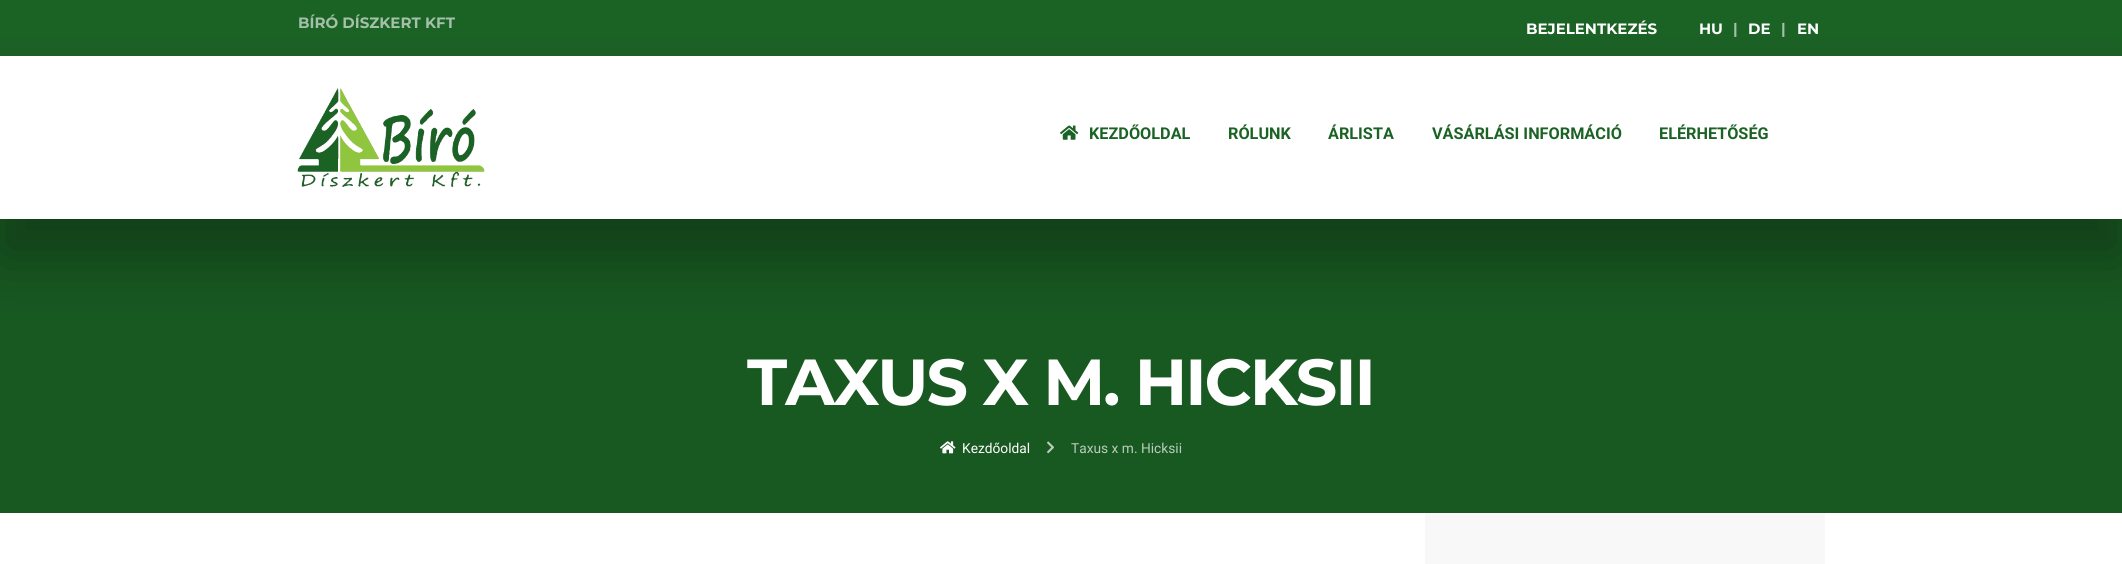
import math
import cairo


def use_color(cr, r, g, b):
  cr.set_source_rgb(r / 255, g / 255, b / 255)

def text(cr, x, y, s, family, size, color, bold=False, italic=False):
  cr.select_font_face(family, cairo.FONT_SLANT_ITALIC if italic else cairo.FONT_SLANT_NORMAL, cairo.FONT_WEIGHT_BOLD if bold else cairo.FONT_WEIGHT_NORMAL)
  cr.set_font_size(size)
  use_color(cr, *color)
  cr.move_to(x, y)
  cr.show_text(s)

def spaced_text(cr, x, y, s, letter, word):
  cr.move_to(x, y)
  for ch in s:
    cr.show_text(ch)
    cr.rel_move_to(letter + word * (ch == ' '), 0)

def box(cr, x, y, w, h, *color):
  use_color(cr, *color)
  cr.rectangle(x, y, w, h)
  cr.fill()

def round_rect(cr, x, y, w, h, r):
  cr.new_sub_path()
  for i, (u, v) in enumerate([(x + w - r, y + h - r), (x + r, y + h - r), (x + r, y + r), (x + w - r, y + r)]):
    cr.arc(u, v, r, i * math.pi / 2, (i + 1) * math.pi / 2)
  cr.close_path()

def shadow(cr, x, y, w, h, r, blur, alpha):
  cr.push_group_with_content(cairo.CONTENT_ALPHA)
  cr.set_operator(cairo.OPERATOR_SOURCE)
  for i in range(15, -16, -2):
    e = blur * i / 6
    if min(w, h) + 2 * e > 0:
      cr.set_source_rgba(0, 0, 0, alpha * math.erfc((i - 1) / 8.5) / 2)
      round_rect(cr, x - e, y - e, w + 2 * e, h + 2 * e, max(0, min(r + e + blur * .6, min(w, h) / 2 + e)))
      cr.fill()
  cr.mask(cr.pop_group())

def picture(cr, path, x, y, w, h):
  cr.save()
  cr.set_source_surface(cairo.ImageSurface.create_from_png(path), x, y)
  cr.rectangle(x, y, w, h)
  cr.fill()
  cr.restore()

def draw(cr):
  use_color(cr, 255, 255, 255)
  cr.paint()
  box(cr, 0, 0, 2122, 56, 27, 98, 37)
  box(cr, 0, 219, 2122, 294, 24, 88, 33)
  use_color(cr, 0, 0, 0)
  shadow(cr, 0, 94, 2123, 162, 0, 31, 0.3)
  box(cr, 0, 56, 2122, 163, 255, 255, 255)
  picture(cr, "img_01.png", 297, 87, 188, 100)
  picture(cr, "img_02.png", 1060, 125, 19, 15)
  picture(cr, "img_03.png", 940, 441, 16, 13)
  picture(cr, "img_04.png", 1047, 441, 7, 13)
  box(cr, 1425, 513, 400, 51, 248, 248, 248)
  text(cr, 298, 28, "BÍRÓ DÍSZKERT KFT", "Montserrat Thin", 15, (164, 192, 168))
  text(cr, 1526, 34, "BEJELENTKEZÉS", "Montserrat Thin", 15, (255, 255, 255))
  text(cr, 1699, 34, "HU", "Montserrat Thin", 15, (255, 255, 255))
  text(cr, 1733, 34, "|", "Montserrat Thin", 15, (164, 192, 168))
  text(cr, 1748, 34, "DE", "Montserrat Thin", 15, (255, 255, 255))
  text(cr, 1781, 34, "|", "Montserrat Thin", 15, (164, 192, 168))
  text(cr, 1797, 34, "EN", "Montserrat Thin", 15, (255, 255, 255))
  text(cr, 1089, 139, "KEZDŐOLDAL", "Roboto", 16.25, (27, 98, 37), bold=True)
  text(cr, 1228, 139, "RÓLUNK", "Roboto", 16.25, (27, 98, 37), bold=True)
  text(cr, 1328, 139, "ÁRLISTA", "Roboto", 16.25, (27, 98, 37), bold=True)
  text(cr, 1432, 139, "VÁSÁRLÁSI INFORMÁCIÓ", "Roboto", 16.25, (27, 98, 37), bold=True)
  text(cr, 1659, 139, "ELÉRHETŐSÉG", "Roboto", 16.25, (27, 98, 37), bold=True)
  cr.select_font_face("Montserrat Thin")
  cr.set_font_size(65)
  use_color(cr, 255, 255, 255)
  spaced_text(cr, 747, 405, "TAXUS X M. HICKSII", -2, 0)
  text(cr, 962, 453, "Kezdőoldal", "Roboto", 13.75, (255, 255, 255))
  text(cr, 1071, 453, "Taxus x m. Hicksii", "Roboto", 13.75, (186, 205, 188))


surface = cairo.ImageSurface(cairo.FORMAT_RGB24, 2122, 564)
cr = cairo.Context(surface)
options = cairo.FontOptions()
options.set_hint_metrics(cairo.HINT_METRICS_OFF)
options.set_hint_style(cairo.HINT_STYLE_NONE)
cr.set_font_options(options)
cr.set_miter_limit(4)
draw(cr)
surface.write_to_png("out.png")
